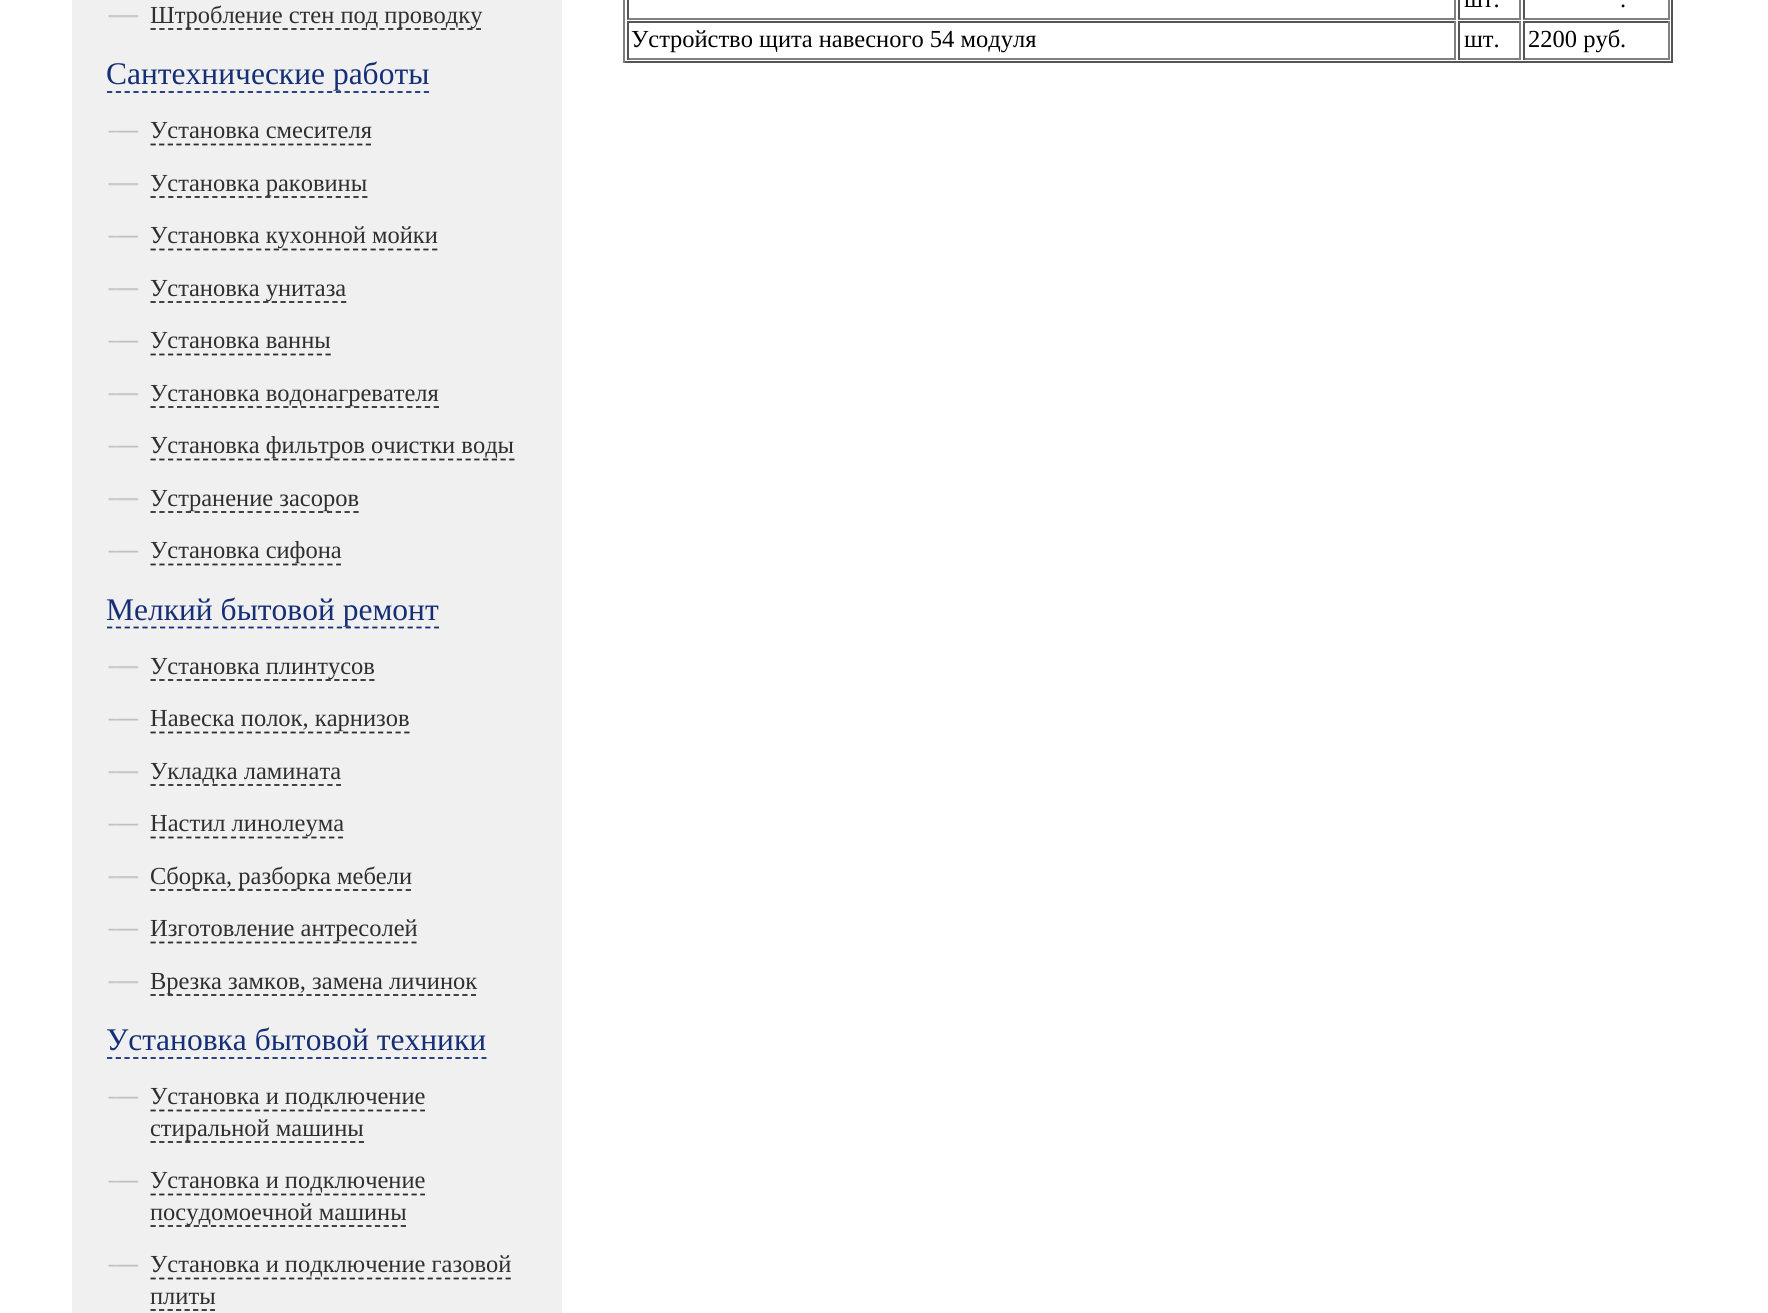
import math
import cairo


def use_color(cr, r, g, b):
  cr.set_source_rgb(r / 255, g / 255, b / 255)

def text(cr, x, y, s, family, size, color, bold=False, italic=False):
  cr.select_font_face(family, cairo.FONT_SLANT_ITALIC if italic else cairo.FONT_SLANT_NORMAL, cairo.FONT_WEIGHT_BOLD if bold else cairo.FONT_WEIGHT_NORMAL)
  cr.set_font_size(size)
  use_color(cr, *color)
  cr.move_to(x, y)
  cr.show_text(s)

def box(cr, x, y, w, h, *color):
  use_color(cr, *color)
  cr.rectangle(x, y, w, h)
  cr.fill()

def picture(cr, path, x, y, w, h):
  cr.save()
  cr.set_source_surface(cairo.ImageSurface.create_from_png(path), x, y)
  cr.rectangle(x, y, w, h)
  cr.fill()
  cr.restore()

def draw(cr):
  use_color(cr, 255, 255, 255)
  cr.paint()
  box(cr, 72, 0, 490, 1313, 240, 240, 240)
  picture(cr, "img_01.png", 108, 15, 31, 3)
  cr.new_path()
  cr.move_to(150.5, 29)
  cr.line_to(481, 29)
  use_color(cr, 47, 47, 47)
  cr.set_line_width(1.8)
  cr.set_dash([5.25, 3.55])
  cr.stroke()
  cr.new_path()
  cr.move_to(107, 92)
  cr.line_to(429, 92)
  use_color(cr, 21, 47, 118)
  cr.stroke()
  picture(cr, "img_02.png", 108, 130, 31, 3)
  cr.new_path()
  cr.move_to(150.5, 144.5)
  cr.line_to(371, 144.5)
  use_color(cr, 47, 47, 47)
  cr.set_dash([5.25, 3.36])
  cr.stroke()
  picture(cr, "img_01.png", 108, 183, 31, 3)
  cr.new_path()
  cr.move_to(150.5, 197)
  cr.line_to(367.5, 197)
  cr.set_dash([5.25, 3.57])
  cr.stroke()
  picture(cr, "img_02.png", 108, 235, 31, 3)
  cr.new_path()
  cr.move_to(150.5, 249.5)
  cr.line_to(437.5, 249.5)
  cr.set_dash([5.25, 3.55])
  cr.stroke()
  picture(cr, "img_01.png", 108, 288, 31, 3)
  cr.new_path()
  cr.move_to(150.5, 302)
  cr.line_to(346.5, 302)
  cr.set_dash([5.25, 3.41])
  cr.stroke()
  picture(cr, "img_02.png", 108, 340, 31, 3)
  cr.new_path()
  cr.move_to(150.5, 354.5)
  cr.line_to(331, 354.5)
  cr.set_dash([5.25, 3.5])
  cr.stroke()
  picture(cr, "img_01.png", 108, 393, 31, 3)
  cr.new_path()
  cr.move_to(150.5, 407)
  cr.line_to(439, 407)
  cr.set_dash([5.25, 3.6])
  cr.stroke()
  picture(cr, "img_02.png", 108, 445, 31, 3)
  cr.new_path()
  cr.move_to(150.5, 459.5)
  cr.line_to(514.5, 459.5)
  cr.set_dash([5.25, 3.5])
  cr.stroke()
  picture(cr, "img_01.png", 108, 498, 31, 3)
  cr.new_path()
  cr.move_to(150.5, 512)
  cr.line_to(359, 512)
  cr.set_dash([5.25, 3.57])
  cr.stroke()
  picture(cr, "img_02.png", 108, 550, 31, 3)
  cr.new_path()
  cr.move_to(150.5, 564.5)
  cr.line_to(341, 564.5)
  cr.set_dash([5.25, 3.59])
  cr.stroke()
  cr.new_path()
  cr.move_to(107, 627.5)
  cr.line_to(439, 627.5)
  use_color(cr, 21, 47, 118)
  cr.stroke()
  picture(cr, "img_01.png", 108, 666, 31, 3)
  cr.new_path()
  cr.move_to(150.5, 680)
  cr.line_to(374.5, 680)
  use_color(cr, 47, 47, 47)
  cr.set_dash([5.25, 3.5])
  cr.stroke()
  picture(cr, "img_02.png", 108, 718, 31, 3)
  cr.new_path()
  cr.move_to(150.5, 732.5)
  cr.line_to(409.5, 732.5)
  cr.stroke()
  picture(cr, "img_01.png", 108, 771, 31, 3)
  cr.new_path()
  cr.move_to(150.5, 785)
  cr.line_to(341, 785)
  cr.set_dash([5.25, 3.59])
  cr.stroke()
  picture(cr, "img_02.png", 108, 823, 31, 3)
  cr.new_path()
  cr.move_to(150.5, 837.5)
  cr.line_to(343, 837.5)
  cr.set_dash([5.25, 3.68])
  cr.stroke()
  picture(cr, "img_01.png", 108, 876, 31, 3)
  cr.new_path()
  cr.move_to(150.5, 890)
  cr.line_to(411, 890)
  cr.set_dash([5.25, 3.55])
  cr.stroke()
  picture(cr, "img_02.png", 108, 928, 31, 3)
  cr.new_path()
  cr.move_to(150.5, 942.5)
  cr.line_to(416.5, 942.5)
  cr.set_dash([5.25, 3.45])
  cr.stroke()
  picture(cr, "img_01.png", 108, 981, 31, 3)
  cr.new_path()
  cr.move_to(150.5, 995)
  cr.line_to(476, 995)
  cr.set_dash([5.25, 3.41])
  cr.stroke()
  cr.new_path()
  cr.move_to(107, 1058)
  cr.line_to(486.5, 1058)
  use_color(cr, 21, 47, 118)
  cr.set_dash([5.25, 3.46])
  cr.stroke()
  picture(cr, "img_02.png", 108, 1096, 31, 3)
  cr.new_path()
  cr.move_to(150.5, 1110.5)
  cr.line_to(425, 1110.5)
  use_color(cr, 47, 47, 47)
  cr.set_dash([5.25, 3.45])
  cr.stroke()
  cr.new_path()
  cr.move_to(150.5, 1142)
  cr.line_to(364, 1142)
  cr.set_dash([5.25, 3.43])
  cr.stroke()
  picture(cr, "img_02.png", 108, 1180, 31, 3)
  cr.new_path()
  cr.move_to(150.5, 1194.5)
  cr.line_to(425, 1194.5)
  cr.set_dash([5.25, 3.45])
  cr.stroke()
  cr.new_path()
  cr.move_to(150.5, 1226)
  cr.line_to(406, 1226)
  cr.set_dash([5.25, 3.38])
  cr.stroke()
  picture(cr, "img_02.png", 108, 1264, 31, 3)
  cr.new_path()
  cr.move_to(150.5, 1278.5)
  cr.line_to(511, 1278.5)
  cr.set_dash([5.25, 3.41])
  cr.stroke()
  cr.new_path()
  cr.move_to(150.5, 1310)
  cr.line_to(215, 1310)
  cr.set_dash([5.25, 3.26])
  cr.stroke()
  box(cr, 1671, 0, 2, 63, 85, 85, 85)
  box(cr, 623, 61, 1050, 2, 85, 85, 85)
  box(cr, 623, 0, 2, 63, 128, 128, 128)
  box(cr, 1454, 0, 2, 19, 128, 128, 128)
  box(cr, 627, 18, 829, 2, 128, 128, 128)
  box(cr, 627, 0, 2, 19, 85, 85, 85)
  box(cr, 1519, 0, 2, 19, 128, 128, 128)
  box(cr, 1458, 18, 63, 2, 128, 128, 128)
  box(cr, 1458, 0, 2, 19, 85, 85, 85)
  box(cr, 1668, 0, 2, 19, 128, 128, 128)
  box(cr, 1523, 18, 147, 2, 128, 128, 128)
  box(cr, 1523, 0, 2, 19, 85, 85, 85)
  box(cr, 627, 21, 829, 2, 85, 85, 85)
  box(cr, 1454, 21, 2, 39, 128, 128, 128)
  box(cr, 627, 58, 829, 2, 128, 128, 128)
  box(cr, 627, 21, 2, 39, 85, 85, 85)
  box(cr, 1458, 21, 63, 2, 85, 85, 85)
  box(cr, 1519, 21, 2, 39, 128, 128, 128)
  box(cr, 1458, 58, 63, 2, 128, 128, 128)
  box(cr, 1458, 21, 2, 39, 85, 85, 85)
  box(cr, 1523, 21, 147, 2, 85, 85, 85)
  box(cr, 1668, 21, 2, 39, 128, 128, 128)
  box(cr, 1523, 58, 147, 2, 128, 128, 128)
  box(cr, 1523, 21, 2, 39, 85, 85, 85)
  text(cr, 150, 23, "Штробление стен под проводку", "Liberation Serif", 24.5, (47, 47, 47))
  text(cr, 106, 84, "Сантехнические работы", "Liberation Serif", 31.5, (21, 47, 118))
  text(cr, 150, 138, "Установка смесителя", "Liberation Serif", 24.5, (47, 47, 47))
  text(cr, 150, 191, "Установка раковины", "Liberation Serif", 24.5, (47, 47, 47))
  text(cr, 150, 243, "Установка кухонной мойки", "Liberation Serif", 24.5, (47, 47, 47))
  text(cr, 150, 296, "Установка унитаза", "Liberation Serif", 24.5, (47, 47, 47))
  text(cr, 150, 348, "Установка ванны", "Liberation Serif", 24.5, (47, 47, 47))
  text(cr, 150, 401, "Установка водонагревателя", "Liberation Serif", 24.5, (47, 47, 47))
  text(cr, 150, 453, "Установка фильтров очистки воды", "Liberation Serif", 24.5, (47, 47, 47))
  text(cr, 150, 506, "Устранение засоров", "Liberation Serif", 24.5, (47, 47, 47))
  text(cr, 150, 558, "Установка сифона", "Liberation Serif", 24.5, (47, 47, 47))
  text(cr, 106, 620, "Мелкий бытовой ремонт", "Liberation Serif", 31.5, (21, 47, 118))
  text(cr, 150, 674, "Установка плинтусов", "Liberation Serif", 24.5, (47, 47, 47))
  text(cr, 150, 726, "Навеска полок, карнизов", "Liberation Serif", 24.5, (47, 47, 47))
  text(cr, 150, 779, "Укладка ламината", "Liberation Serif", 24.5, (47, 47, 47))
  text(cr, 150, 831, "Настил линолеума", "Liberation Serif", 24.5, (47, 47, 47))
  text(cr, 150, 884, "Сборка, разборка мебели", "Liberation Serif", 24.5, (47, 47, 47))
  text(cr, 150, 936, "Изготовление антресолей", "Liberation Serif", 24.5, (47, 47, 47))
  text(cr, 150, 989, "Врезка замков, замена личинок", "Liberation Serif", 24.5, (47, 47, 47))
  text(cr, 106, 1050, "Установка бытовой техники", "Liberation Serif", 31.5, (21, 47, 118))
  text(cr, 150, 1104, "Установка и подключение", "Liberation Serif", 24.5, (47, 47, 47))
  text(cr, 150, 1136, "стиральной машины", "Liberation Serif", 24.5, (47, 47, 47))
  text(cr, 150, 1188, "Установка и подключение", "Liberation Serif", 24.5, (47, 47, 47))
  text(cr, 150, 1220, "посудомоечной машины", "Liberation Serif", 24.5, (47, 47, 47))
  text(cr, 150, 1272, "Установка и подключение газовой", "Liberation Serif", 24.5, (47, 47, 47))
  text(cr, 150, 1304, "плиты", "Liberation Serif", 24.5, (47, 47, 47))
  text(cr, 1464, 7, "шт.", "Liberation Serif", 24.5, (0, 0, 0))
  text(cr, 1620, 7, ".", "Liberation Serif", 24.5, (0, 0, 0))
  text(cr, 631, 47, "Устройство щита навесного 54 модуля", "Liberation Serif", 24.5, (0, 0, 0))
  text(cr, 1464, 47, "шт.", "Liberation Serif", 24.5, (0, 0, 0))
  text(cr, 1528, 47, "2200 руб.", "Liberation Serif", 24.5, (0, 0, 0))


surface = cairo.ImageSurface(cairo.FORMAT_RGB24, 1768, 1313)
cr = cairo.Context(surface)
options = cairo.FontOptions()
options.set_hint_metrics(cairo.HINT_METRICS_OFF)
options.set_hint_style(cairo.HINT_STYLE_NONE)
cr.set_font_options(options)
cr.set_miter_limit(4)
draw(cr)
surface.write_to_png("out.png")
